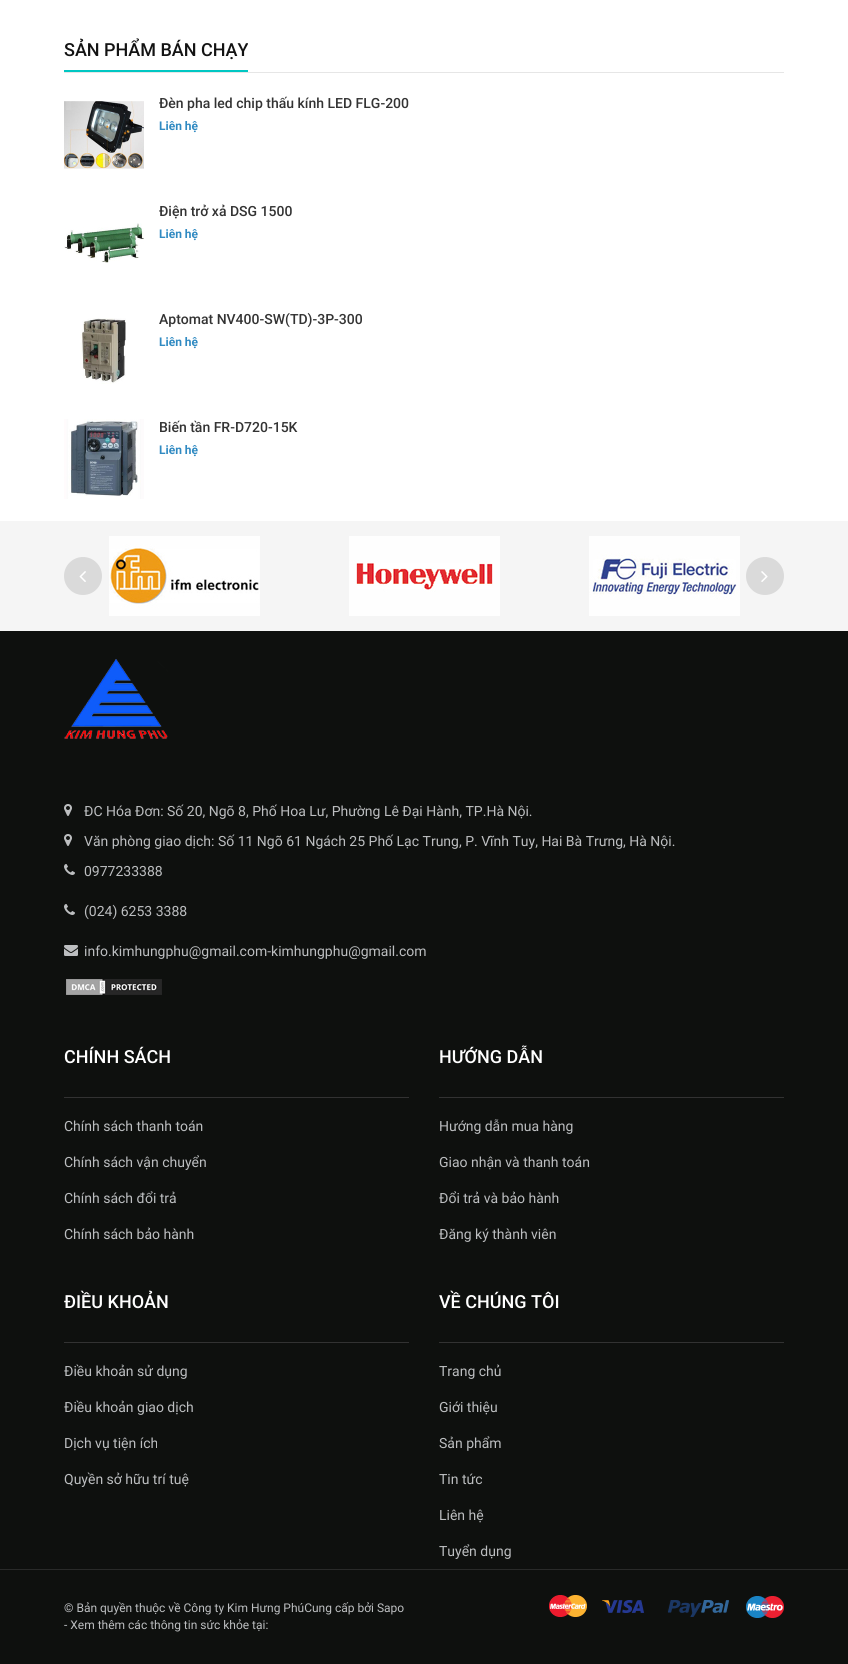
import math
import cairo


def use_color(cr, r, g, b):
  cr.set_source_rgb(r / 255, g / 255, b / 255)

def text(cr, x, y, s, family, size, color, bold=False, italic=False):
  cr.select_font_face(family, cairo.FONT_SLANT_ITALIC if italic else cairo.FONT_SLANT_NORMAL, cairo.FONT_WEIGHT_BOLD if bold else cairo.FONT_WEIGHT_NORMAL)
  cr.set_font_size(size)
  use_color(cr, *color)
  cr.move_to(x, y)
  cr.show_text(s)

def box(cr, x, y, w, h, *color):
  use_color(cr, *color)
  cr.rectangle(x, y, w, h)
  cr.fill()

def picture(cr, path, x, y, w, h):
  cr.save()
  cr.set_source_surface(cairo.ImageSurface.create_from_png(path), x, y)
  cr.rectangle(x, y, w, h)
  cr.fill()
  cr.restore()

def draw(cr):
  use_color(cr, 255, 255, 255)
  cr.paint()
  box(cr, 64, 72, 720, 1, 230, 230, 230)
  box(cr, 64, 70, 184, 2, 0, 199, 195)
  picture(cr, "img_01.png", 64, 101, 80, 69)
  picture(cr, "img_02.png", 64, 223, 80, 40)
  picture(cr, "img_03.png", 80, 318, 46, 66)
  picture(cr, "img_04.png", 64, 419, 80, 80)
  box(cr, 0, 521, 848, 110, 245, 245, 245)
  picture(cr, "img_05.png", 109, 536, 151, 80)
  picture(cr, "img_06.png", 349, 536, 151, 80)
  picture(cr, "img_07.png", 589, 536, 151, 80)
  use_color(cr, 218, 218, 218)
  cr.arc(83, 576, 19, 0, 2 * math.pi)
  cr.fill()
  picture(cr, "img_08.png", 79, 571, 7, 11)
  cr.arc(765, 576, 19, 0, 2 * math.pi)
  cr.fill()
  picture(cr, "img_09.png", 761, 571, 7, 11)
  box(cr, 0, 631, 848, 1033, 14, 16, 14)
  picture(cr, "img_10.png", 64, 659, 104, 80)
  picture(cr, "img_11.png", 64, 804, 8, 12)
  picture(cr, "img_11.png", 64, 834, 8, 12)
  picture(cr, "img_12.png", 64, 864, 11, 11)
  picture(cr, "img_12.png", 64, 904, 11, 11)
  picture(cr, "img_13.png", 64, 945, 14, 11)
  picture(cr, "img_14.png", 66, 979, 96, 16)
  box(cr, 64, 1097, 345, 1, 50, 50, 50)
  box(cr, 439, 1097, 345, 1, 50, 50, 50)
  box(cr, 64, 1342, 345, 1, 50, 50, 50)
  box(cr, 439, 1342, 345, 1, 50, 50, 50)
  box(cr, 0, 1569, 848, 1, 41, 42, 41)
  picture(cr, "img_15.png", 549, 1595, 235, 23)
  text(cr, 64, 56, "SẢN PHẨM BÁN CHẠY", "Roboto Medium", 18, (19, 19, 19))
  text(cr, 159, 108, "Đèn pha led chip thấu kính LED FLG-200", "Roboto Medium", 14, (51, 51, 51))
  text(cr, 159, 130, "Liên hệ", "Roboto", 12, (48, 138, 194), bold=True)
  text(cr, 159, 216, "Điện trở xả DSG 1500", "Roboto Medium", 14, (51, 51, 51))
  text(cr, 159, 238, "Liên hệ", "Roboto", 12, (48, 138, 194), bold=True)
  text(cr, 159, 324, "Aptomat NV400-SW(TD)-3P-300", "Roboto Medium", 14, (51, 51, 51))
  text(cr, 159, 346, "Liên hệ", "Roboto", 12, (48, 138, 194), bold=True)
  text(cr, 159, 432, "Biến tần FR-D720-15K", "Roboto Medium", 14, (51, 51, 51))
  text(cr, 159, 454, "Liên hệ", "Roboto", 12, (48, 138, 194), bold=True)
  text(cr, 84, 816, "ĐC Hóa Đơn: Số 20, Ngõ 8, Phố Hoa Lư, Phường Lê Đại Hành, TP.Hà Nội.", "Roboto", 14, (188, 190, 192))
  text(cr, 84, 846, "Văn phòng giao dịch: Số 11 Ngõ 61 Ngách 25 Phố Lạc Trung, P. Vĩnh Tuy, Hai Bà Trưng, Hà Nội.", "Roboto", 14, (188, 190, 192))
  text(cr, 84, 876, "0977233388", "Roboto", 14, (188, 190, 192))
  text(cr, 84, 916, "(024) 6253 3388", "Roboto", 14, (188, 190, 192))
  text(cr, 84, 956, "info.kimhungphu@gmail.com-kimhungphu@gmail.com", "Roboto", 14, (188, 190, 192))
  text(cr, 64, 1063, "CHÍNH SÁCH", "Roboto Medium", 18, (255, 255, 255))
  text(cr, 64, 1131, "Chính sách thanh toán", "Roboto", 14, (188, 190, 192))
  text(cr, 64, 1167, "Chính sách vận chuyển", "Roboto", 14, (188, 190, 192))
  text(cr, 64, 1203, "Chính sách đổi trả", "Roboto", 14, (188, 190, 192))
  text(cr, 64, 1239, "Chính sách bảo hành", "Roboto", 14, (188, 190, 192))
  text(cr, 439, 1063, "HƯỚNG DẪN", "Roboto Medium", 18, (255, 255, 255))
  text(cr, 439, 1131, "Hướng dẫn mua hàng", "Roboto", 14, (188, 190, 192))
  text(cr, 439, 1167, "Giao nhận và thanh toán", "Roboto", 14, (188, 190, 192))
  text(cr, 439, 1203, "Đổi trả và bảo hành", "Roboto", 14, (188, 190, 192))
  text(cr, 439, 1239, "Đăng ký thành viên", "Roboto", 14, (188, 190, 192))
  text(cr, 64, 1308, "ĐIỀU KHOẢN", "Roboto Medium", 18, (255, 255, 255))
  text(cr, 64, 1376, "Điều khoản sử dụng", "Roboto", 14, (188, 190, 192))
  text(cr, 64, 1412, "Điều khoản giao dịch", "Roboto", 14, (188, 190, 192))
  text(cr, 64, 1448, "Dịch vụ tiện ích", "Roboto", 14, (188, 190, 192))
  text(cr, 64, 1484, "Quyền sở hữu trí tuệ", "Roboto", 14, (188, 190, 192))
  text(cr, 439, 1308, "VỀ CHÚNG TÔI", "Roboto Medium", 18, (255, 255, 255))
  text(cr, 439, 1376, "Trang chủ", "Roboto", 14, (188, 190, 192))
  text(cr, 439, 1412, "Giới thiệu", "Roboto", 14, (188, 190, 192))
  text(cr, 439, 1448, "Sản phẩm", "Roboto", 14, (188, 190, 192))
  text(cr, 439, 1484, "Tin tức", "Roboto", 14, (188, 190, 192))
  text(cr, 439, 1520, "Liên hệ", "Roboto", 14, (188, 190, 192))
  text(cr, 439, 1556, "Tuyển dụng", "Roboto", 14, (188, 190, 192))
  text(cr, 64, 1612, "© Bản quyền thuộc về Công ty Kim Hưng PhúCung cấp bởi Sapo", "Roboto", 12, (188, 190, 192))
  text(cr, 64, 1629, "- Xem thêm các thông tin sức khỏe tại:", "Roboto", 12, (188, 190, 192))


surface = cairo.ImageSurface(cairo.FORMAT_RGB24, 848, 1664)
cr = cairo.Context(surface)
options = cairo.FontOptions()
options.set_hint_metrics(cairo.HINT_METRICS_OFF)
options.set_hint_style(cairo.HINT_STYLE_NONE)
cr.set_font_options(options)
cr.set_miter_limit(4)
draw(cr)
surface.write_to_png("out.png")
